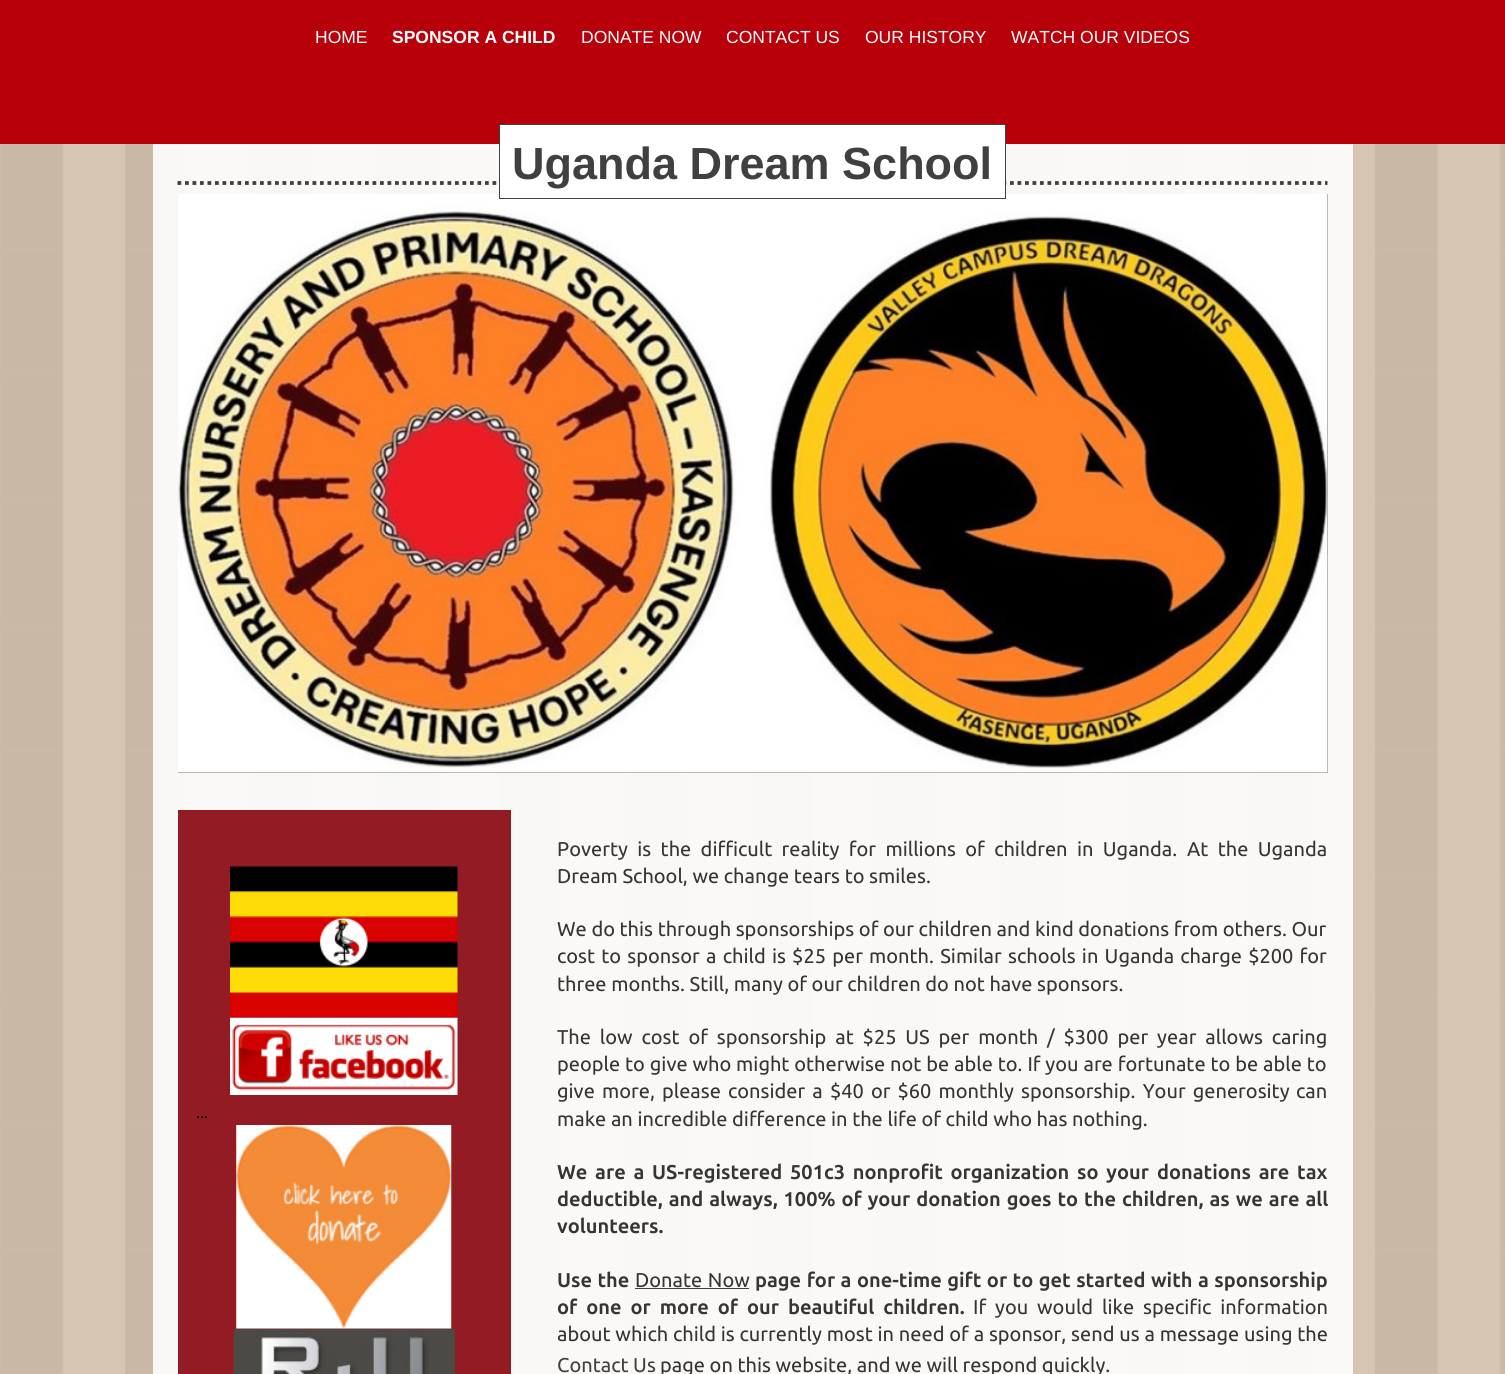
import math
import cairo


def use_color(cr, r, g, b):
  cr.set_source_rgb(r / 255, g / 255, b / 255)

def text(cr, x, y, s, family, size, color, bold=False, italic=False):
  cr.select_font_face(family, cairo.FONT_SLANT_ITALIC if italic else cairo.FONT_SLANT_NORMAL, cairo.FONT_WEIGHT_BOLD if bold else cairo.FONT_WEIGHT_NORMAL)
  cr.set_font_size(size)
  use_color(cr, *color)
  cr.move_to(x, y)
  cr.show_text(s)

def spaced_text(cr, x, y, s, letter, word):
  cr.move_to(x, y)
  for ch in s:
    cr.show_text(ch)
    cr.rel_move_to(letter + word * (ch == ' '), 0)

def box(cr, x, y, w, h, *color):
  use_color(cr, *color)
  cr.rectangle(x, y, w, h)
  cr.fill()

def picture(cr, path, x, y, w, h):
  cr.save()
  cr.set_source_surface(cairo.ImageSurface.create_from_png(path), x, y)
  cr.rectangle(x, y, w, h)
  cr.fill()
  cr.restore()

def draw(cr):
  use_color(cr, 212, 194, 172)
  cr.paint()
  picture(cr, "img_01.png", 0, 144, 1505, 1230)
  box(cr, 0, 0, 1505, 144, 184, 0, 11)
  cr.set_source_rgba(1, 1, 1, 0.9)
  cr.rectangle(153, 144, 1200, 1230)
  cr.fill()
  cr.new_path()
  cr.move_to(177.5, 183)
  cr.line_to(1327.5, 183)
  use_color(cr, 64, 64, 64)
  cr.set_line_width(3.8)
  cr.set_dash([3.75, 3.75])
  cr.stroke()
  box(cr, 500, 125, 505, 69, 255, 255, 255)
  box(cr, 178, 194, 1150, 579, 160, 160, 160)
  picture(cr, "img_02.png", 178, 194, 1150, 579)
  cr.rectangle(499.5, 124.5, 506, 74)
  use_color(cr, 64, 64, 64)
  cr.set_line_width(1)
  cr.set_dash([])
  cr.stroke()
  box(cr, 178, 810, 333, 564, 147, 28, 36)
  picture(cr, "img_03.png", 230, 866, 228, 152)
  picture(cr, "img_04.png", 230, 1017, 228, 78)
  picture(cr, "img_05.png", 236, 1125, 216, 204)
  picture(cr, "img_06.png", 233, 1328, 222, 46)
  box(cr, 635, 1288, 114, 1, 64, 64, 64)
  text(cr, 315, 43, "HOME", "Liberation Sans", 17.5, (255, 255, 255))
  text(cr, 392, 43, "SPONSOR A CHILD", "Liberation Sans", 17.5, (255, 255, 255), bold=True)
  text(cr, 581, 43, "DONATE NOW", "Liberation Sans", 17.5, (255, 255, 255))
  text(cr, 726, 43, "CONTACT US", "Liberation Sans", 17.5, (255, 255, 255))
  text(cr, 865, 43, "OUR HISTORY", "Liberation Sans", 17.5, (255, 255, 255))
  text(cr, 1011, 43, "WATCH OUR VIDEOS", "Liberation Sans", 17.5, (255, 255, 255))
  text(cr, 512, 179, "Uganda Dream School", "Liberation Sans", 45, (64, 64, 64), bold=True)
  text(cr, 196, 1118, "...", "Ubuntu", 16, (0, 0, 0))
  cr.set_font_size(20)
  use_color(cr, 53, 53, 53)
  spaced_text(cr, 557, 856, "Poverty is the difficult reality for millions of children in Uganda.", 0, 4.75)
  spaced_text(cr, 1187, 856, "At the Uganda", 0, 4.75)
  text(cr, 557, 883, "Dream School, we change tears to smiles.", "Ubuntu", 20, (53, 53, 53))
  text(cr, 557, 936, "We do this through sponsorships of our children and kind donations from others. Our", "Ubuntu", 20, (53, 53, 53))
  spaced_text(cr, 557, 963, "cost to sponsor a child is $25 per month. Similar schools in Uganda charge $200 for", 0, 1.6)
  text(cr, 557, 991, "three months. Still, many of our children do not have sponsors.", "Ubuntu", 20, (53, 53, 53))
  spaced_text(cr, 557, 1044, "The low cost of sponsorship at $25 US per month / $300 per year allows caring", 0, 4.25)
  spaced_text(cr, 557, 1071, "people to give who might otherwise not be able to. If you are fortunate to be able to", 0, 0.25)
  spaced_text(cr, 557, 1098, "give more, please consider a $40 or $60 monthly sponsorship. Your generosity", 0, 2.5)
  text(cr, 1296, 1098, "can", "Ubuntu", 20, (53, 53, 53))
  text(cr, 557, 1126, "make an incredible difference in the life of child who has nothing.", "Ubuntu", 20, (53, 53, 53))
  cr.select_font_face("Ubuntu", cairo.FONT_SLANT_NORMAL, cairo.FONT_WEIGHT_BOLD)
  spaced_text(cr, 557, 1179, "We are a US-registered 501c3 nonprofit organization so your", 0, 3)
  spaced_text(cr, 1157, 1179, "donations are tax", 0, 3)
  spaced_text(cr, 557, 1206, "deductible, and always, 100% of your donation goes to the children, as we are all", 0, 1.25)
  text(cr, 557, 1233, "volunteers.", "Ubuntu", 20, (53, 53, 53), bold=True)
  spaced_text(cr, 557, 1287, "Use the", 0, 0.75)
  cr.select_font_face("Ubuntu")
  spaced_text(cr, 635, 1287, "Donate Now", 0, 1)
  cr.select_font_face("Ubuntu", cairo.FONT_SLANT_NORMAL, cairo.FONT_WEIGHT_BOLD)
  spaced_text(cr, 755, 1287, "page for a one-time gift or to get started with a sponsorship", 0, 0.75)
  spaced_text(cr, 557, 1314, "of one or more of our beautiful children.", 0, 4.25)
  cr.select_font_face("Ubuntu")
  spaced_text(cr, 973, 1314, "If you would like specific information", 0, 4.25)
  spaced_text(cr, 557, 1341, "about which child is currently most in need of a sponsor, send us a message using the", 0, 0.2)
  text(cr, 557, 1372, "Contact Us", "Ubuntu", 20, (64, 64, 64))
  text(cr, 660, 1372, "page on this website, and we will respond quickly.", "Ubuntu", 20, (53, 53, 53))


surface = cairo.ImageSurface(cairo.FORMAT_RGB24, 1505, 1374)
cr = cairo.Context(surface)
options = cairo.FontOptions()
options.set_hint_metrics(cairo.HINT_METRICS_OFF)
options.set_hint_style(cairo.HINT_STYLE_NONE)
cr.set_font_options(options)
cr.set_miter_limit(4)
draw(cr)
surface.write_to_png("out.png")
